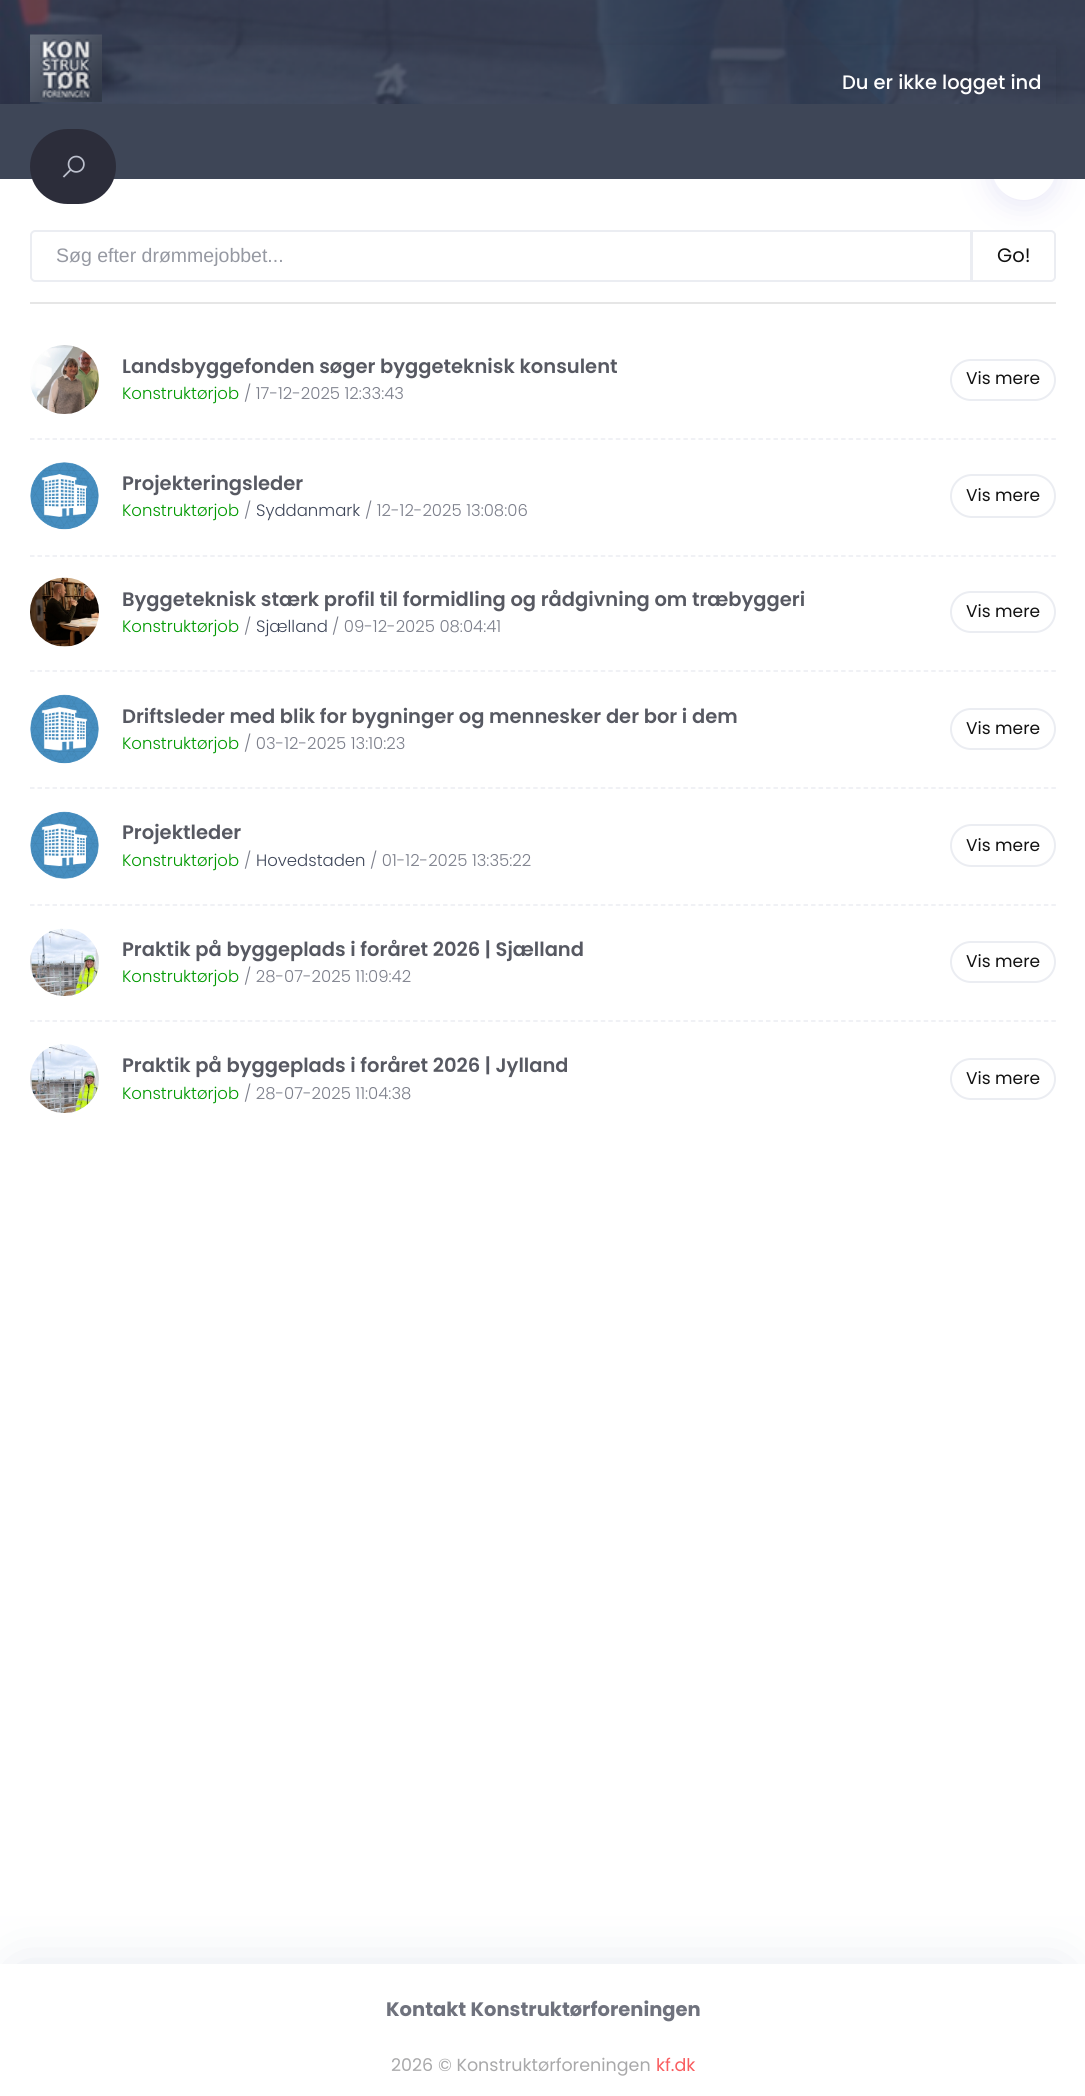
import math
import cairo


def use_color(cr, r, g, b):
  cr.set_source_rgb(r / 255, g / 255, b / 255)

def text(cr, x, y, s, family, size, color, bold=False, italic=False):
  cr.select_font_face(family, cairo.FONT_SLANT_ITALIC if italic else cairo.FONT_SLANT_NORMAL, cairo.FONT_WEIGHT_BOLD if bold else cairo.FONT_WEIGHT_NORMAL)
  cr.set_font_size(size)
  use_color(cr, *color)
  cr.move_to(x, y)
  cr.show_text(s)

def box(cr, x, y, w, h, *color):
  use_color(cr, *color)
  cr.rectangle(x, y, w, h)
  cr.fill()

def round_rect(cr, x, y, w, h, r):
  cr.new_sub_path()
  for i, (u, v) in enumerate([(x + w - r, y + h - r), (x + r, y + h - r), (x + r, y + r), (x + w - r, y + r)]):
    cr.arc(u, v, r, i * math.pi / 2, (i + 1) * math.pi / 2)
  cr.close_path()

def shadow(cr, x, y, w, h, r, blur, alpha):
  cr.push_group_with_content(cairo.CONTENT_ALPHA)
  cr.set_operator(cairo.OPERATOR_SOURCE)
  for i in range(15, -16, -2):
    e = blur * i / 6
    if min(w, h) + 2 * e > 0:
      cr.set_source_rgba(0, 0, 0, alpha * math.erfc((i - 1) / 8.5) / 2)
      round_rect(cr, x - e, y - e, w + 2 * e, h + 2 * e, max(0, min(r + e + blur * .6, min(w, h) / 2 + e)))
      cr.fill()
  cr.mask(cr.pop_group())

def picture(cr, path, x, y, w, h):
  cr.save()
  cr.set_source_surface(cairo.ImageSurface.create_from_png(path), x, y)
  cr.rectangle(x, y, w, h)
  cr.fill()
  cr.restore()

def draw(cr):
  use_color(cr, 255, 255, 255)
  cr.paint()
  use_color(cr, 113, 106, 202)
  shadow(cr, 992, 140, 64, 64, 32, 15, 0.17)
  picture(cr, "img_01.png", 0, 0, 1085, 104)
  picture(cr, "img_02.png", 30, 34, 72, 68)
  use_color(cr, 255, 255, 255)
  round_rect(cr, 993.5, 136.5, 61, 62, 30.5)
  cr.fill_preserve()
  cr.set_line_width(3)
  cr.stroke()
  cr.save()
  cr.set_fill_rule(cairo.FILL_RULE_EVEN_ODD)
  cr.new_path()
  cr.move_to(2, 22)
  cr.line_to(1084, 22)
  cr.line_to(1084, 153)
  cr.line_to(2, 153)
  cr.close_path()
  cr.move_to(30, 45)
  cr.line_to(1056, 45)
  cr.line_to(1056, 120)
  cr.line_to(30, 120)
  cr.close_path()
  cr.clip()
  use_color(cr, 0, 0, 0)
  shadow(cr, 30, 50, 1026, 75, 0, 9, 0.1)
  cr.restore()
  box(cr, 0, 104, 1085, 75, 62, 70, 87)
  use_color(cr, 44, 45, 58)
  round_rect(cr, 30, 129, 86, 75, 37.5)
  cr.fill()
  picture(cr, "img_03.png", 62, 155, 23, 23)
  cr.new_path()
  cr.move_to(35, 231)
  cr.line_to(971, 231)
  cr.line_to(971, 281)
  cr.line_to(35, 281)
  cr.curve_to(33, 281, 31, 279, 31, 277)
  cr.line_to(31, 235)
  cr.curve_to(31, 233, 33, 231, 35, 231)
  cr.close_path()
  use_color(cr, 235, 237, 242)
  cr.set_line_width(2)
  cr.stroke()
  use_color(cr, 255, 255, 255)
  cr.new_path()
  cr.move_to(972, 231)
  cr.line_to(1051, 231)
  cr.curve_to(1053, 231, 1055, 233, 1055, 235)
  cr.line_to(1055, 277)
  cr.curve_to(1055, 279, 1053, 281, 1051, 281)
  cr.line_to(972, 281)
  cr.close_path()
  cr.fill_preserve()
  use_color(cr, 235, 237, 242)
  cr.stroke()
  box(cr, 30, 302, 1026, 2, 230, 230, 230)
  cr.new_path()
  cr.move_to(30, 439)
  cr.line_to(1056, 439)
  use_color(cr, 235, 237, 242)
  cr.set_line_width(1.5)
  cr.set_dash([4.5, 3.01])
  cr.stroke()
  picture(cr, "img_04.png", 30, 345, 69, 69)
  round_rect(cr, 951, 360, 104, 40, 20)
  cr.set_line_width(2)
  cr.set_dash([])
  cr.stroke()
  cr.new_path()
  cr.move_to(30, 556)
  cr.line_to(1056, 556)
  cr.set_line_width(1.5)
  cr.set_dash([4.5, 3.01])
  cr.stroke()
  picture(cr, "img_05.png", 30, 462, 69, 68)
  round_rect(cr, 951, 475, 104, 42, 21)
  cr.set_line_width(2)
  cr.set_dash([])
  cr.stroke()
  cr.new_path()
  cr.move_to(30, 671)
  cr.line_to(1056, 671)
  cr.set_line_width(1.5)
  cr.set_dash([4.5, 3.01])
  cr.stroke()
  picture(cr, "img_06.png", 30, 577, 69, 70)
  round_rect(cr, 951, 592, 104, 40, 20)
  cr.set_line_width(2)
  cr.set_dash([])
  cr.stroke()
  cr.new_path()
  cr.move_to(30, 788)
  cr.line_to(1056, 788)
  cr.set_line_width(1.5)
  cr.set_dash([4.5, 3.01])
  cr.stroke()
  picture(cr, "img_07.png", 30, 694, 69, 70)
  round_rect(cr, 951, 709, 104, 40, 20)
  cr.set_line_width(2)
  cr.set_dash([])
  cr.stroke()
  cr.new_path()
  cr.move_to(30, 905)
  cr.line_to(1056, 905)
  cr.set_line_width(1.5)
  cr.set_dash([4.5, 3.01])
  cr.stroke()
  picture(cr, "img_08.png", 30, 811, 69, 68)
  round_rect(cr, 951, 825, 104, 41, 20.5)
  cr.set_line_width(2)
  cr.set_dash([])
  cr.stroke()
  cr.new_path()
  cr.move_to(30, 1021)
  cr.line_to(1056, 1021)
  cr.set_line_width(1.5)
  cr.set_dash([4.5, 3.01])
  cr.stroke()
  picture(cr, "img_09.png", 30, 928, 69, 68)
  round_rect(cr, 951, 942, 104, 40, 20)
  cr.set_line_width(2)
  cr.set_dash([])
  cr.stroke()
  picture(cr, "img_10.png", 30, 1044, 69, 69)
  round_rect(cr, 951, 1059, 104, 40, 20)
  cr.stroke()
  cr.save()
  cr.rectangle(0, 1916, 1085, 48)
  cr.clip()
  use_color(cr, 202, 210, 222)
  shadow(cr, 18, 1973, 1044, 91, 0, 31, 0.61)
  cr.restore()
  text(cr, 842, 89, "Du er ikke logget ind", "Poppins Medium", 19.5, (255, 255, 255))
  text(cr, 56, 262, "Søg efter drømmejobbet...", "Liberation Sans", 19.5, (150, 153, 162))
  text(cr, 997, 262, "Go!", "Poppins", 19.5, (17, 17, 17))
  text(cr, 122, 373, "Landsbyggefonden søger byggeteknisk konsulent", "Poppins SemiBold", 19.5, (87, 89, 98))
  text(cr, 122, 399, "Konstruktørjob", "Poppins Light", 16.5, (0, 153, 0))
  text(cr, 244, 399, "/ 17-12-2025 12:33:43", "Poppins Light", 16.5, (123, 126, 138))
  text(cr, 966, 384, "Vis mere", "Poppins", 17, (17, 17, 17))
  text(cr, 122, 490, "Projekteringsleder", "Poppins SemiBold", 19.5, (87, 89, 98))
  text(cr, 122, 516, "Konstruktørjob", "Poppins Light", 16.5, (0, 153, 0))
  text(cr, 244, 516, "/", "Poppins Light", 16.5, (123, 126, 138))
  text(cr, 256, 516, "Syddanmark", "Poppins Light", 16.5, (61, 69, 88))
  text(cr, 365, 516, "/ 12-12-2025 13:08:06", "Poppins Light", 16.5, (123, 126, 138))
  text(cr, 966, 501, "Vis mere", "Poppins", 17, (17, 17, 17))
  text(cr, 122, 606, "Byggeteknisk stærk profil til formidling og rådgivning om træbyggeri", "Poppins SemiBold", 19.5, (87, 89, 98))
  text(cr, 122, 632, "Konstruktørjob", "Poppins Light", 16.5, (0, 153, 0))
  text(cr, 244, 632, "/", "Poppins Light", 16.5, (123, 126, 138))
  text(cr, 256, 632, "Sjælland", "Poppins Light", 16.5, (61, 69, 88))
  text(cr, 332, 632, "/ 09-12-2025 08:04:41", "Poppins Light", 16.5, (123, 126, 138))
  text(cr, 966, 617, "Vis mere", "Poppins", 17, (17, 17, 17))
  text(cr, 122, 723, "Driftsleder med blik for bygninger og mennesker der bor i dem", "Poppins SemiBold", 19.5, (87, 89, 98))
  text(cr, 122, 749, "Konstruktørjob", "Poppins Light", 16.5, (0, 153, 0))
  text(cr, 244, 749, "/ 03-12-2025 13:10:23", "Poppins Light", 16.5, (123, 126, 138))
  text(cr, 966, 734, "Vis mere", "Poppins", 17, (17, 17, 17))
  text(cr, 122, 839, "Projektleder", "Poppins SemiBold", 19.5, (87, 89, 98))
  text(cr, 122, 866, "Konstruktørjob", "Poppins Light", 16.5, (0, 153, 0))
  text(cr, 244, 866, "/", "Poppins Light", 16.5, (123, 126, 138))
  text(cr, 256, 866, "Hovedstaden", "Poppins Light", 16.5, (61, 69, 88))
  text(cr, 370, 866, "/ 01-12-2025 13:35:22", "Poppins Light", 16.5, (123, 126, 138))
  text(cr, 966, 851, "Vis mere", "Poppins", 17, (17, 17, 17))
  text(cr, 122, 956, "Praktik på byggeplads i foråret 2026 | Sjælland", "Poppins SemiBold", 19.5, (87, 89, 98))
  text(cr, 122, 982, "Konstruktørjob", "Poppins Light", 16.5, (0, 153, 0))
  text(cr, 244, 982, "/ 28-07-2025 11:09:42", "Poppins Light", 16.5, (123, 126, 138))
  text(cr, 966, 967, "Vis mere", "Poppins", 17, (17, 17, 17))
  text(cr, 122, 1072, "Praktik på byggeplads i foråret 2026 | Jylland", "Poppins SemiBold", 19.5, (87, 89, 98))
  text(cr, 122, 1099, "Konstruktørjob", "Poppins Light", 16.5, (0, 153, 0))
  text(cr, 244, 1099, "/ 28-07-2025 11:04:38", "Poppins Light", 16.5, (123, 126, 138))
  text(cr, 966, 1084, "Vis mere", "Poppins", 17, (17, 17, 17))
  text(cr, 386, 2016, "Kontakt Konstruktørforeningen", "Poppins", 19.5, (111, 114, 125), bold=True)
  text(cr, 391, 2071, "2026 © Konstruktørforeningen", "Poppins", 17.5, (169, 169, 170))
  text(cr, 656, 2071, "kf.dk", "Poppins", 17.5, (249, 93, 96))


surface = cairo.ImageSurface(cairo.FORMAT_RGB24, 1085, 2096)
cr = cairo.Context(surface)
options = cairo.FontOptions()
options.set_hint_metrics(cairo.HINT_METRICS_OFF)
options.set_hint_style(cairo.HINT_STYLE_NONE)
cr.set_font_options(options)
cr.set_miter_limit(4)
draw(cr)
surface.write_to_png("out.png")
